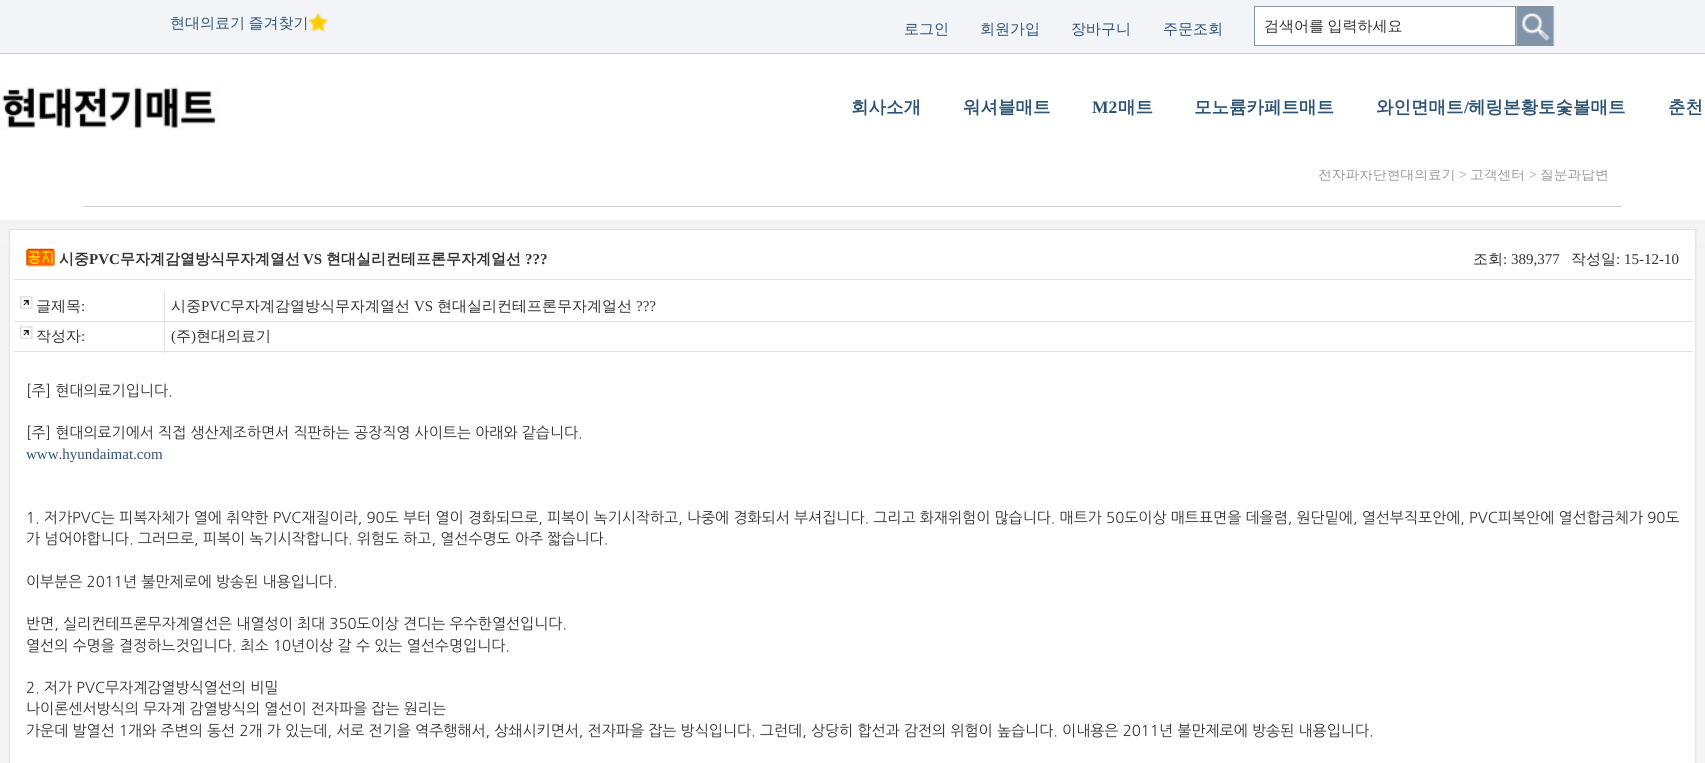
import math
import cairo


def use_color(cr, r, g, b):
  cr.set_source_rgb(r / 255, g / 255, b / 255)

def text(cr, x, y, s, family, size, color, bold=False, italic=False):
  cr.select_font_face(family, cairo.FONT_SLANT_ITALIC if italic else cairo.FONT_SLANT_NORMAL, cairo.FONT_WEIGHT_BOLD if bold else cairo.FONT_WEIGHT_NORMAL)
  cr.set_font_size(size)
  use_color(cr, *color)
  cr.move_to(x, y)
  cr.show_text(s)

def spaced_text(cr, x, y, s, letter, word):
  cr.move_to(x, y)
  for ch in s:
    cr.show_text(ch)
    cr.rel_move_to(letter + word * (ch == ' '), 0)

def box(cr, x, y, w, h, *color):
  use_color(cr, *color)
  cr.rectangle(x, y, w, h)
  cr.fill()

def picture(cr, path, x, y, w, h):
  cr.save()
  cr.set_source_surface(cairo.ImageSurface.create_from_png(path), x, y)
  cr.rectangle(x, y, w, h)
  cr.fill()
  cr.restore()

def draw(cr):
  use_color(cr, 255, 255, 255)
  cr.paint()
  box(cr, 0, 0, 1705, 53, 242, 244, 247)
  box(cr, 0, 53, 1705, 1, 204, 204, 204)
  picture(cr, "img_01.png", 308, 12, 20, 20)
  use_color(cr, 255, 255, 255)
  cr.rectangle(1254.5, 6.5, 261, 39)
  cr.fill_preserve()
  use_color(cr, 130, 148, 168)
  cr.set_line_width(1)
  cr.stroke()
  picture(cr, "img_02.png", 1516, 6, 39, 40)
  picture(cr, "img_03.png", 0, 86, 219, 43)
  box(cr, 84, 206, 1537, 1, 204, 204, 204)
  picture(cr, "img_05.png", 13, 220, 1680, 10)
  picture(cr, "img_04.png", 0, 220, 14, 21)
  picture(cr, "img_06.png", 1692, 220, 13, 21)
  picture(cr, "img_07.png", 0, 241, 10, 522)
  picture(cr, "img_08.png", 26, 248, 29, 19)
  box(cr, 14, 279, 1680, 1, 226, 226, 226)
  box(cr, 164, 351, 1530, 1, 226, 226, 226)
  box(cr, 164, 321, 1, 32, 226, 226, 226)
  box(cr, 164, 321, 1530, 1, 226, 226, 226)
  box(cr, 164, 291, 1, 32, 226, 226, 226)
  box(cr, 14, 321, 151, 1, 226, 226, 226)
  picture(cr, "img_09.png", 20, 296, 13, 13)
  box(cr, 14, 351, 151, 1, 226, 226, 226)
  picture(cr, "img_09.png", 20, 326, 13, 13)
  picture(cr, "img_10.png", 1695, 241, 10, 522)
  cr.select_font_face("WenQuanYi Zen Hei Medium")
  cr.set_font_size(15)
  use_color(cr, 45, 84, 117)
  spaced_text(cr, 170, 28, "현대의료기 즐겨찾기", 0, -1)
  text(cr, 904, 34, "로그인", "WenQuanYi Zen Hei Medium", 15, (45, 84, 117))
  text(cr, 980, 34, "회원가입", "WenQuanYi Zen Hei Medium", 15, (45, 84, 117))
  text(cr, 1071, 34, "장바구니", "WenQuanYi Zen Hei Medium", 15, (45, 84, 117))
  text(cr, 1163, 34, "주문조회", "WenQuanYi Zen Hei Medium", 15, (45, 84, 117))
  use_color(cr, 51, 51, 51)
  spaced_text(cr, 1264, 31, "검색어를 입력하세요", 0, -1)
  text(cr, 851, 113, "회사소개", "WenQuanYi Zen Hei", 17.5, (45, 84, 117), bold=True)
  text(cr, 963, 113, "워셔블매트", "WenQuanYi Zen Hei", 17.5, (45, 84, 117), bold=True)
  text(cr, 1092, 113, "M2", "Liberation Serif", 17.5, (45, 84, 117), bold=True)
  text(cr, 1118, 113, "매트", "WenQuanYi Zen Hei", 17.5, (45, 84, 117), bold=True)
  text(cr, 1194, 113, "모노륨카페트매트", "WenQuanYi Zen Hei", 17.5, (45, 84, 117), bold=True)
  text(cr, 1376, 113, "와인면매트", "WenQuanYi Zen Hei", 17.5, (45, 84, 117), bold=True)
  text(cr, 1464, 113, "/", "Liberation Serif", 17.5, (45, 84, 117), bold=True)
  text(cr, 1468, 113, "헤링본황토숯볼매트", "WenQuanYi Zen Hei", 17.5, (45, 84, 117), bold=True)
  text(cr, 1668, 113, "춘천", "WenQuanYi Zen Hei", 17.5, (45, 84, 117), bold=True)
  text(cr, 1318, 179, "전자파차단현대의료기", "WenQuanYi Zen Hei Medium", 13.75, (153, 153, 153))
  text(cr, 1459, 179, ">", "Liberation Serif", 13.75, (153, 153, 153))
  text(cr, 1470, 179, "고객센터", "WenQuanYi Zen Hei Medium", 13.75, (153, 153, 153))
  text(cr, 1529, 179, ">", "Liberation Serif", 13.75, (153, 153, 153))
  text(cr, 1540, 179, "질문과답변", "WenQuanYi Zen Hei Medium", 13.75, (153, 153, 153))
  box(cr, 1319, 168, 288, 2, 255, 255, 255)
  text(cr, 59, 264, "시중", "WenQuanYi Zen Hei", 15, (51, 51, 51), bold=True)
  text(cr, 89, 264, "PVC", "Liberation Serif", 15, (51, 51, 51), bold=True)
  text(cr, 120, 264, "무자계감열방식무자계열선", "WenQuanYi Zen Hei", 15, (51, 51, 51), bold=True)
  text(cr, 303, 264, "VS", "Liberation Serif", 15, (51, 51, 51), bold=True)
  text(cr, 326, 264, "현대실리컨테프론무자계얼선", "WenQuanYi Zen Hei", 15, (51, 51, 51), bold=True)
  text(cr, 525, 264, "???", "Liberation Serif", 15, (51, 51, 51), bold=True)
  text(cr, 1473, 264, "조회", "WenQuanYi Zen Hei Medium", 15, (51, 51, 51))
  text(cr, 1503, 264, ": 389,377", "Liberation Serif", 15, (51, 51, 51))
  text(cr, 1571, 264, "작성일", "WenQuanYi Zen Hei Medium", 15, (51, 51, 51))
  text(cr, 1616, 264, ": 15-12-10", "Liberation Serif", 15, (51, 51, 51))
  text(cr, 36, 311, "글제목", "WenQuanYi Zen Hei Medium", 15, (51, 51, 51))
  text(cr, 81, 311, ":", "Liberation Serif", 15, (51, 51, 51))
  text(cr, 171, 311, "시중", "WenQuanYi Zen Hei Medium", 15, (51, 51, 51))
  text(cr, 201, 311, "PVC", "Liberation Serif", 15, (51, 51, 51))
  text(cr, 230, 311, "무자계감열방식무자계열선", "WenQuanYi Zen Hei Medium", 15, (51, 51, 51))
  text(cr, 414, 311, "VS", "Liberation Serif", 15, (51, 51, 51))
  text(cr, 437, 311, "현대실리컨테프론무자계얼선", "WenQuanYi Zen Hei Medium", 15, (51, 51, 51))
  text(cr, 636, 311, "???", "Liberation Serif", 15, (51, 51, 51))
  text(cr, 36, 341, "작성자", "WenQuanYi Zen Hei Medium", 15, (51, 51, 51))
  text(cr, 81, 341, ":", "Liberation Serif", 15, (51, 51, 51))
  text(cr, 171, 341, "(", "Liberation Serif", 15, (51, 51, 51))
  text(cr, 176, 341, "주", "WenQuanYi Zen Hei Medium", 15, (51, 51, 51))
  text(cr, 191, 341, ")", "Liberation Serif", 15, (51, 51, 51))
  text(cr, 196, 341, "현대의료기", "WenQuanYi Zen Hei Medium", 15, (51, 51, 51))
  text(cr, 26, 396, "[주] 현대의료기입니다.", "NanumGothic", 15, (51, 51, 51))
  text(cr, 26, 438, "[주] 현대의료기에서 직접 생산제조하면서 직판하는 공장직영 사이트는 아래와 같습니다.", "NanumGothic", 15, (51, 51, 51))
  text(cr, 26, 459, "www.hyundaimat.com", "Liberation Serif", 15, (45, 84, 117))
  text(cr, 26, 523, "1. 저가PVC는 피복자체가 열에 취약한 PVC재질이라, 90도 부터 열이 경화되므로, 피복이 녹기시작하고, 나중에 경화되서 부셔집니다. 그리고 화재위험이 많습니다. 매트가 50도이상 매트표면을 데을렴, 원단밑에, 열선부직포안에, PVC피복안에 열선합금체가 90도", "NanumGothic", 15, (51, 51, 51))
  text(cr, 26, 544, "가 넘어야합니다. 그러므로, 피복이 녹기시작합니다. 위험도 하고, 열선수명도 아주 짧습니다.", "NanumGothic", 15, (51, 51, 51))
  text(cr, 26, 587, "이부분은 2011년 불만제로에 방송된 내용입니다.", "NanumGothic", 15, (51, 51, 51))
  text(cr, 26, 629, "반면, 실리컨테프론무자계열선은 내열성이 최대 350도이상 견디는 우수한열선입니다.", "NanumGothic", 15, (51, 51, 51))
  text(cr, 26, 651, "열선의 수명을 결정하느것입니다. 최소 10년이상 갈 수 있는 열선수명입니다.", "NanumGothic", 15, (51, 51, 51))
  text(cr, 26, 693, "2. 저가 PVC무자계감열방식열선의 비밀", "NanumGothic", 15, (51, 51, 51))
  text(cr, 26, 714, "나이론센서방식의 무자계 감열방식의 열선이 전자파을 잡는 원리는", "NanumGothic", 15, (51, 51, 51))
  text(cr, 26, 736, "가운데 발열선 1개와 주변의 동선 2개 가 있는데, 서로 전기을 역주행해서, 상쇄시키면서, 전자파을 잡는 방식입니다. 그런데, 상당히 합선과 감전의 위험이 높습니다. 이내용은 2011년 불만제로에 방송된 내용입니다.", "NanumGothic", 15, (51, 51, 51))


surface = cairo.ImageSurface(cairo.FORMAT_RGB24, 1705, 763)
cr = cairo.Context(surface)
options = cairo.FontOptions()
options.set_hint_metrics(cairo.HINT_METRICS_OFF)
options.set_hint_style(cairo.HINT_STYLE_NONE)
cr.set_font_options(options)
cr.set_miter_limit(4)
draw(cr)
surface.write_to_png("out.png")
